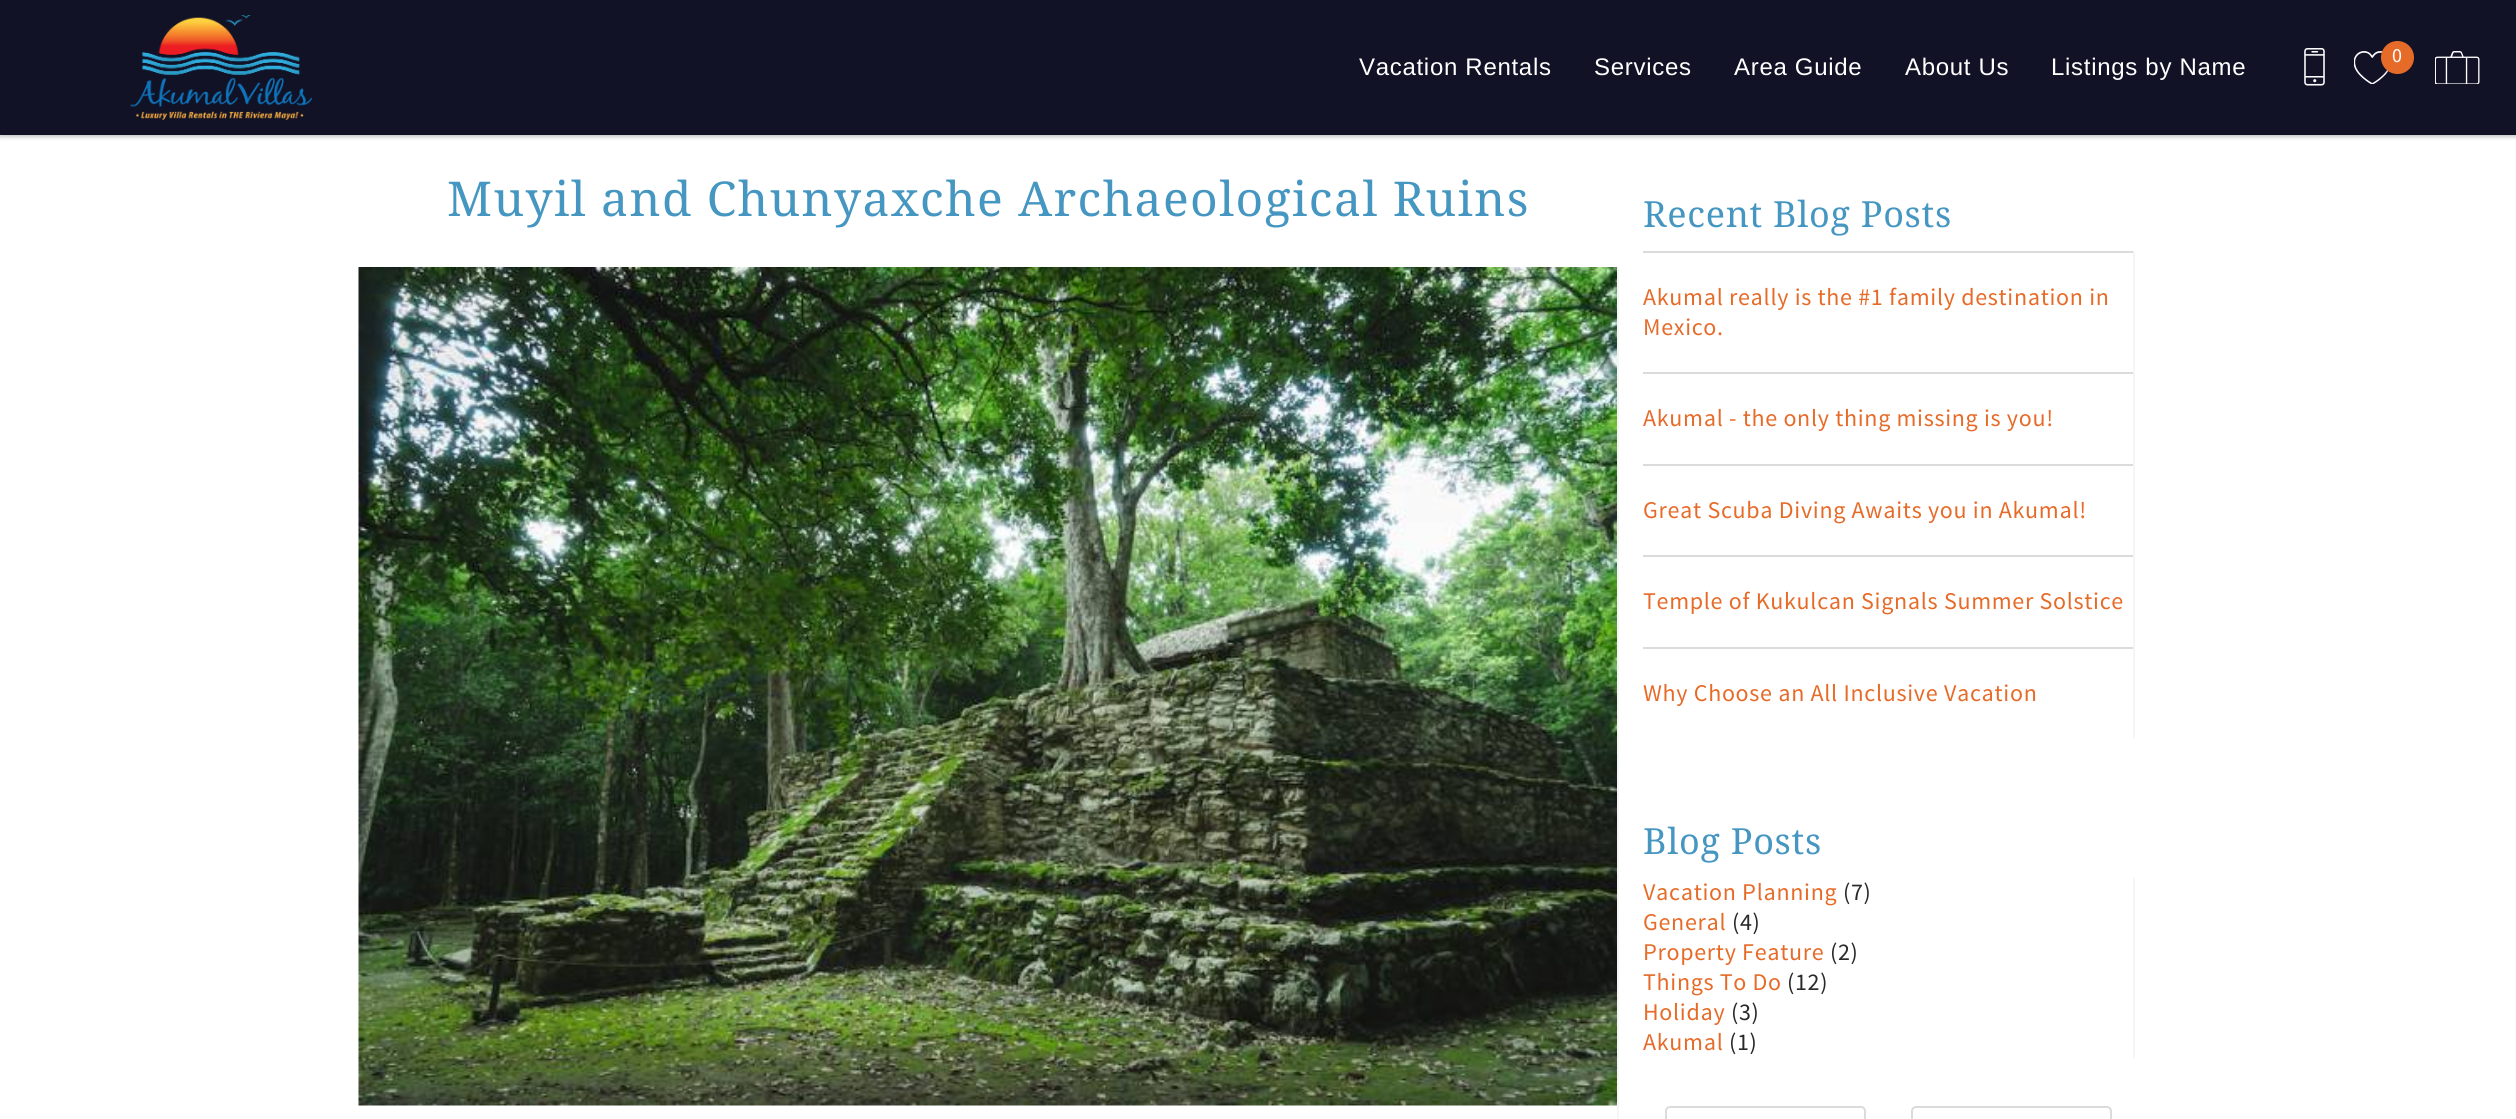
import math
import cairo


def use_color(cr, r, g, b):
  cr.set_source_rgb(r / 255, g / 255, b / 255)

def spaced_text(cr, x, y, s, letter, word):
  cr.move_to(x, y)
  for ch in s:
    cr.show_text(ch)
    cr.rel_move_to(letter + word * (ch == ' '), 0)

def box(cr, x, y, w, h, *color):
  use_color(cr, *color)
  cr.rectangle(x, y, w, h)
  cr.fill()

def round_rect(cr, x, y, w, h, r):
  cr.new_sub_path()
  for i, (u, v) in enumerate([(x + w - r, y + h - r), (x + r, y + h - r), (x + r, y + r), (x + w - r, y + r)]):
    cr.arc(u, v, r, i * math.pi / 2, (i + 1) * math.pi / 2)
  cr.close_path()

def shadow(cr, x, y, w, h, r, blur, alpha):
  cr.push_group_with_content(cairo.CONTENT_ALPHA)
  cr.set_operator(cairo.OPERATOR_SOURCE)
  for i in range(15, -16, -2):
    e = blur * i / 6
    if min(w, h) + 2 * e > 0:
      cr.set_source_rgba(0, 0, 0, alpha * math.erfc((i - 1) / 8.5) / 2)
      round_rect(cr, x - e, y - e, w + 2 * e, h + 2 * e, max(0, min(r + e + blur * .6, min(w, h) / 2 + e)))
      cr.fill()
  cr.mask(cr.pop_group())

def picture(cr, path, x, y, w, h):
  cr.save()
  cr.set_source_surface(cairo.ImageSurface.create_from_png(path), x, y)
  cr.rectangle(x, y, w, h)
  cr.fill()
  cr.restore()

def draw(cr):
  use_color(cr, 255, 255, 255)
  cr.paint()
  use_color(cr, 17, 17, 17)
  shadow(cr, 0, 2, 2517, 135, 0, 2, 0.25)
  box(cr, 0, 0, 2516, 135, 17, 18, 38)
  picture(cr, "img_01.png", 130, 15, 182, 105)
  picture(cr, "img_02.png", 2304, 48, 21, 38)
  picture(cr, "img_03.png", 2354, 51, 35, 33)
  use_color(cr, 17, 17, 17)
  shadow(cr, 2381, 42, 33, 33, 16.5, 2, 0.25)
  use_color(cr, 231, 107, 40)
  cr.arc(2397.5, 57.5, 16.5, 0, 2 * math.pi)
  cr.fill()
  picture(cr, "img_04.png", 2435, 51, 45, 33)
  box(cr, 1617, 267, 2, 852, 245, 245, 245)
  picture(cr, "img_05.png", 358, 267, 1259, 839)
  box(cr, 2133, 251, 2, 487, 245, 245, 245)
  box(cr, 1643, 251, 490, 2, 219, 219, 219)
  box(cr, 1643, 372, 490, 2, 219, 219, 219)
  box(cr, 1643, 464, 490, 2, 219, 219, 219)
  box(cr, 1643, 555, 490, 2, 219, 219, 219)
  box(cr, 1643, 647, 490, 2, 219, 219, 219)
  box(cr, 2133, 878, 2, 180, 245, 245, 245)
  round_rect(cr, 1666, 1107, 199, 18, 4)
  use_color(cr, 219, 219, 219)
  cr.stroke()
  round_rect(cr, 1912, 1107, 199, 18, 4)
  cr.stroke()
  cr.select_font_face("Liberation Sans")
  cr.set_font_size(24)
  use_color(cr, 255, 255, 255)
  spaced_text(cr, 1359, 75, "Vacation Rentals", 0.7, 0)
  spaced_text(cr, 1594, 75, "Services", 0.7, 0)
  spaced_text(cr, 1734, 75, "Area Guide", 0.7, 0)
  spaced_text(cr, 1905, 75, "About Us", 0.7, 0)
  spaced_text(cr, 2051, 75, "Listings by Name", 0.7, 0)
  cr.select_font_face("Source Sans Pro")
  cr.set_font_size(20)
  spaced_text(cr, 2392, 62, "0", 0.7, 0)
  cr.select_font_face("Noto Serif")
  cr.set_font_size(48)
  use_color(cr, 69, 150, 193)
  spaced_text(cr, 447, 216, "Muyil and Chunyaxche Archaeological Ruins", 1.45, 0)
  cr.set_font_size(36)
  spaced_text(cr, 1643, 227, "Recent Blog Posts", 0.7, 0)
  cr.select_font_face("Source Sans Pro")
  cr.set_font_size(24)
  use_color(cr, 231, 107, 40)
  spaced_text(cr, 1643, 305, "Akumal really is the #1 family destination in", 0.7, 0)
  spaced_text(cr, 1643, 335, "Mexico.", 0.7, 0)
  spaced_text(cr, 1643, 426, "Akumal - the only thing missing is you!", 0.7, 0)
  spaced_text(cr, 1643, 518, "Great Scuba Diving Awaits you in Akumal!", 0.7, 0)
  spaced_text(cr, 1643, 609, "Temple of Kukulcan Signals Summer Solstice", 0.7, 0)
  spaced_text(cr, 1643, 701, "Why Choose an All Inclusive Vacation", 0.7, 0)
  cr.select_font_face("Noto Serif")
  cr.set_font_size(36)
  use_color(cr, 69, 150, 193)
  spaced_text(cr, 1643, 854, "Blog Posts", 0.7, 0)
  cr.select_font_face("Source Sans Pro")
  cr.set_font_size(24)
  use_color(cr, 231, 107, 40)
  spaced_text(cr, 1643, 900, "Vacation Planning", 0.7, 0)
  use_color(cr, 41, 41, 41)
  spaced_text(cr, 1843, 900, "(7)", 0.7, 0)
  use_color(cr, 231, 107, 40)
  spaced_text(cr, 1643, 930, "General", 0.7, 0)
  use_color(cr, 41, 41, 41)
  spaced_text(cr, 1732, 930, "(4)", 0.7, 0)
  use_color(cr, 231, 107, 40)
  spaced_text(cr, 1643, 960, "Property Feature", 0.7, 0)
  use_color(cr, 41, 41, 41)
  spaced_text(cr, 1830, 960, "(2)", 0.7, 0)
  use_color(cr, 231, 107, 40)
  spaced_text(cr, 1643, 990, "Things To Do", 0.7, 0)
  use_color(cr, 41, 41, 41)
  spaced_text(cr, 1787, 990, "(12)", 0.7, 0)
  use_color(cr, 231, 107, 40)
  spaced_text(cr, 1643, 1020, "Holiday", 0.7, 0)
  use_color(cr, 41, 41, 41)
  spaced_text(cr, 1731, 1020, "(3)", 0.7, 0)
  use_color(cr, 231, 107, 40)
  spaced_text(cr, 1643, 1050, "Akumal", 0.7, 0)
  use_color(cr, 41, 41, 41)
  spaced_text(cr, 1729, 1050, "(1)", 0.7, 0)


surface = cairo.ImageSurface(cairo.FORMAT_RGB24, 2516, 1119)
cr = cairo.Context(surface)
options = cairo.FontOptions()
options.set_hint_metrics(cairo.HINT_METRICS_OFF)
options.set_hint_style(cairo.HINT_STYLE_NONE)
cr.set_font_options(options)
cr.set_miter_limit(4)
draw(cr)
surface.write_to_png("out.png")
